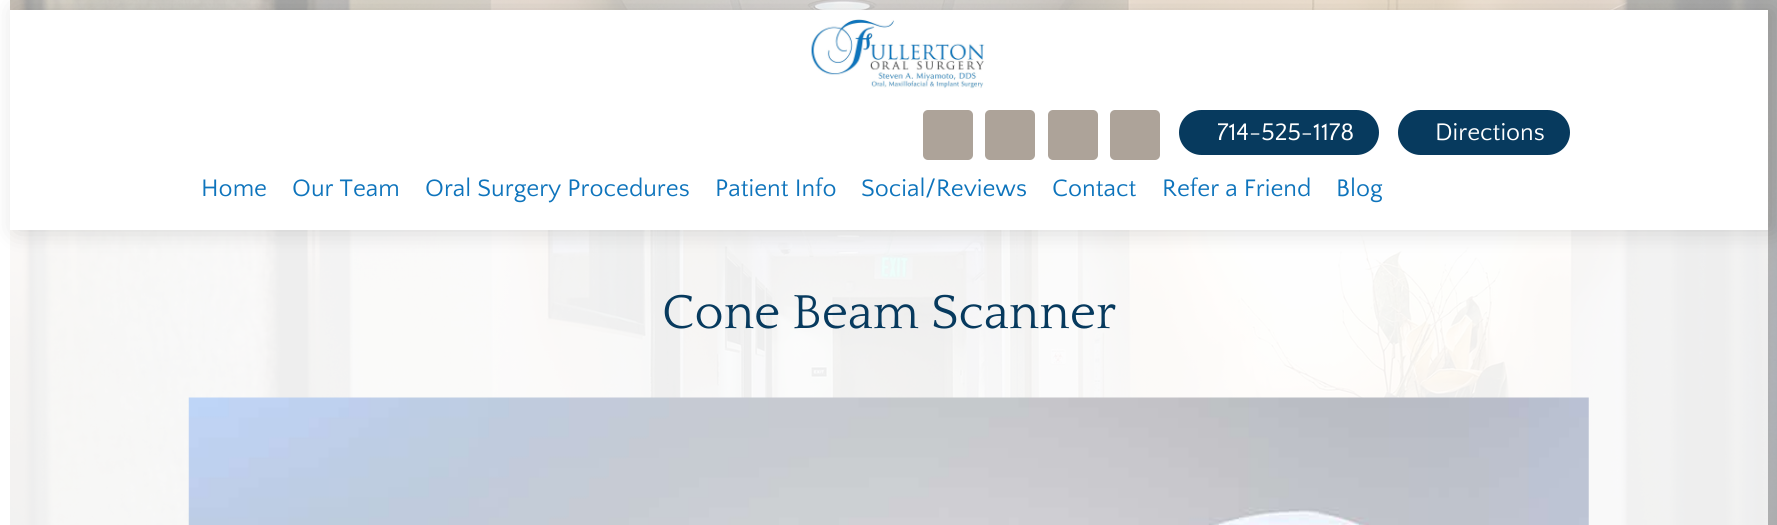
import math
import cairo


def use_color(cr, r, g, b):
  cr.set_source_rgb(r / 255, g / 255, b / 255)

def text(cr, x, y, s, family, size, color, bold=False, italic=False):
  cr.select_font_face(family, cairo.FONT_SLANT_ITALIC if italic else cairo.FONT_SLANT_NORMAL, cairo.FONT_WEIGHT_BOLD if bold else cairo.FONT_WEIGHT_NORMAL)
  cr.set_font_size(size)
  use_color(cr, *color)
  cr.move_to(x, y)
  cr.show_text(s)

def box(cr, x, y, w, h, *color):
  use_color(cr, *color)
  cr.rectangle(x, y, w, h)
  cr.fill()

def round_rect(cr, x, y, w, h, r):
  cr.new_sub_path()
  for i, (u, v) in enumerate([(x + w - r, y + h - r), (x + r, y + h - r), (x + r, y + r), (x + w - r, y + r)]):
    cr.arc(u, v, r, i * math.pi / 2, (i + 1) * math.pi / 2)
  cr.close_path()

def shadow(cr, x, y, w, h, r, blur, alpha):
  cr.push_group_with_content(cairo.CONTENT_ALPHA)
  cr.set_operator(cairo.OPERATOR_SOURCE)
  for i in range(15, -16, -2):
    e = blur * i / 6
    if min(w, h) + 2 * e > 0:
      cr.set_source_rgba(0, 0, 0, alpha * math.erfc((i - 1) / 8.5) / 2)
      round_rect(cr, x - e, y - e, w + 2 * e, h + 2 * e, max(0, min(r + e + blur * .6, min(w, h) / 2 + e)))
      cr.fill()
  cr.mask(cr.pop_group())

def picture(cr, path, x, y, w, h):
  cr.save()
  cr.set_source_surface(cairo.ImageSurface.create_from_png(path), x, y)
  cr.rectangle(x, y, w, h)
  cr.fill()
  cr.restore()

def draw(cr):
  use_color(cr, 255, 255, 255)
  cr.paint()
  picture(cr, "img_01.png", 10, 0, 1767, 525)
  cr.set_source_rgba(1, 1, 1, 0.8)
  cr.rectangle(10, 230, 1758, 149)
  cr.fill()
  use_color(cr, 0, 0, 0)
  shadow(cr, 16, 10, 1758, 220, 0, 12.5, 0.15)
  box(cr, 10, 10, 1758, 220, 255, 255, 255)
  picture(cr, "img_02.png", 811, 19, 174, 70)
  use_color(cr, 173, 163, 153)
  round_rect(cr, 923, 110, 50, 50, 5)
  cr.fill()
  round_rect(cr, 985, 110, 50, 50, 5)
  cr.fill()
  round_rect(cr, 1048, 110, 50, 50, 5)
  cr.fill()
  round_rect(cr, 1110, 110, 50, 50, 5)
  cr.fill()
  use_color(cr, 7, 58, 94)
  round_rect(cr, 1179, 110, 200, 45, 22.5)
  cr.fill()
  round_rect(cr, 1398, 110, 172, 45, 22.5)
  cr.fill()
  cr.set_source_rgba(1, 1, 1, 0.8)
  cr.rectangle(10, 379, 1758, 146)
  cr.fill()
  picture(cr, "img_03.png", 188, 397, 1401, 128)
  text(cr, 1217, 140, "714-525-1178", "Quattrocento Sans", 25, (255, 255, 255))
  text(cr, 1435, 140, "Directions", "Quattrocento Sans", 25, (255, 255, 255))
  text(cr, 201, 196, "Home", "Quattrocento Sans", 25, (14, 116, 188))
  text(cr, 292, 196, "Our Team", "Quattrocento Sans", 25, (14, 116, 188))
  text(cr, 425, 196, "Oral Surgery Procedures", "Quattrocento Sans", 25, (14, 116, 188))
  text(cr, 715, 196, "Patient Info", "Quattrocento Sans", 25, (14, 116, 188))
  text(cr, 861, 196, "Social/Reviews", "Quattrocento Sans", 25, (14, 116, 188))
  text(cr, 1052, 196, "Contact", "Quattrocento Sans", 25, (14, 116, 188))
  text(cr, 1162, 196, "Refer a Friend", "Quattrocento Sans", 25, (14, 116, 188))
  text(cr, 1336, 196, "Blog", "Quattrocento Sans", 25, (14, 116, 188))
  text(cr, 662, 328, "Cone Beam Scanner", "Quattrocento", 50, (7, 58, 94))


surface = cairo.ImageSurface(cairo.FORMAT_RGB24, 1777, 525)
cr = cairo.Context(surface)
options = cairo.FontOptions()
options.set_hint_metrics(cairo.HINT_METRICS_OFF)
options.set_hint_style(cairo.HINT_STYLE_NONE)
cr.set_font_options(options)
cr.set_miter_limit(4)
draw(cr)
surface.write_to_png("out.png")
